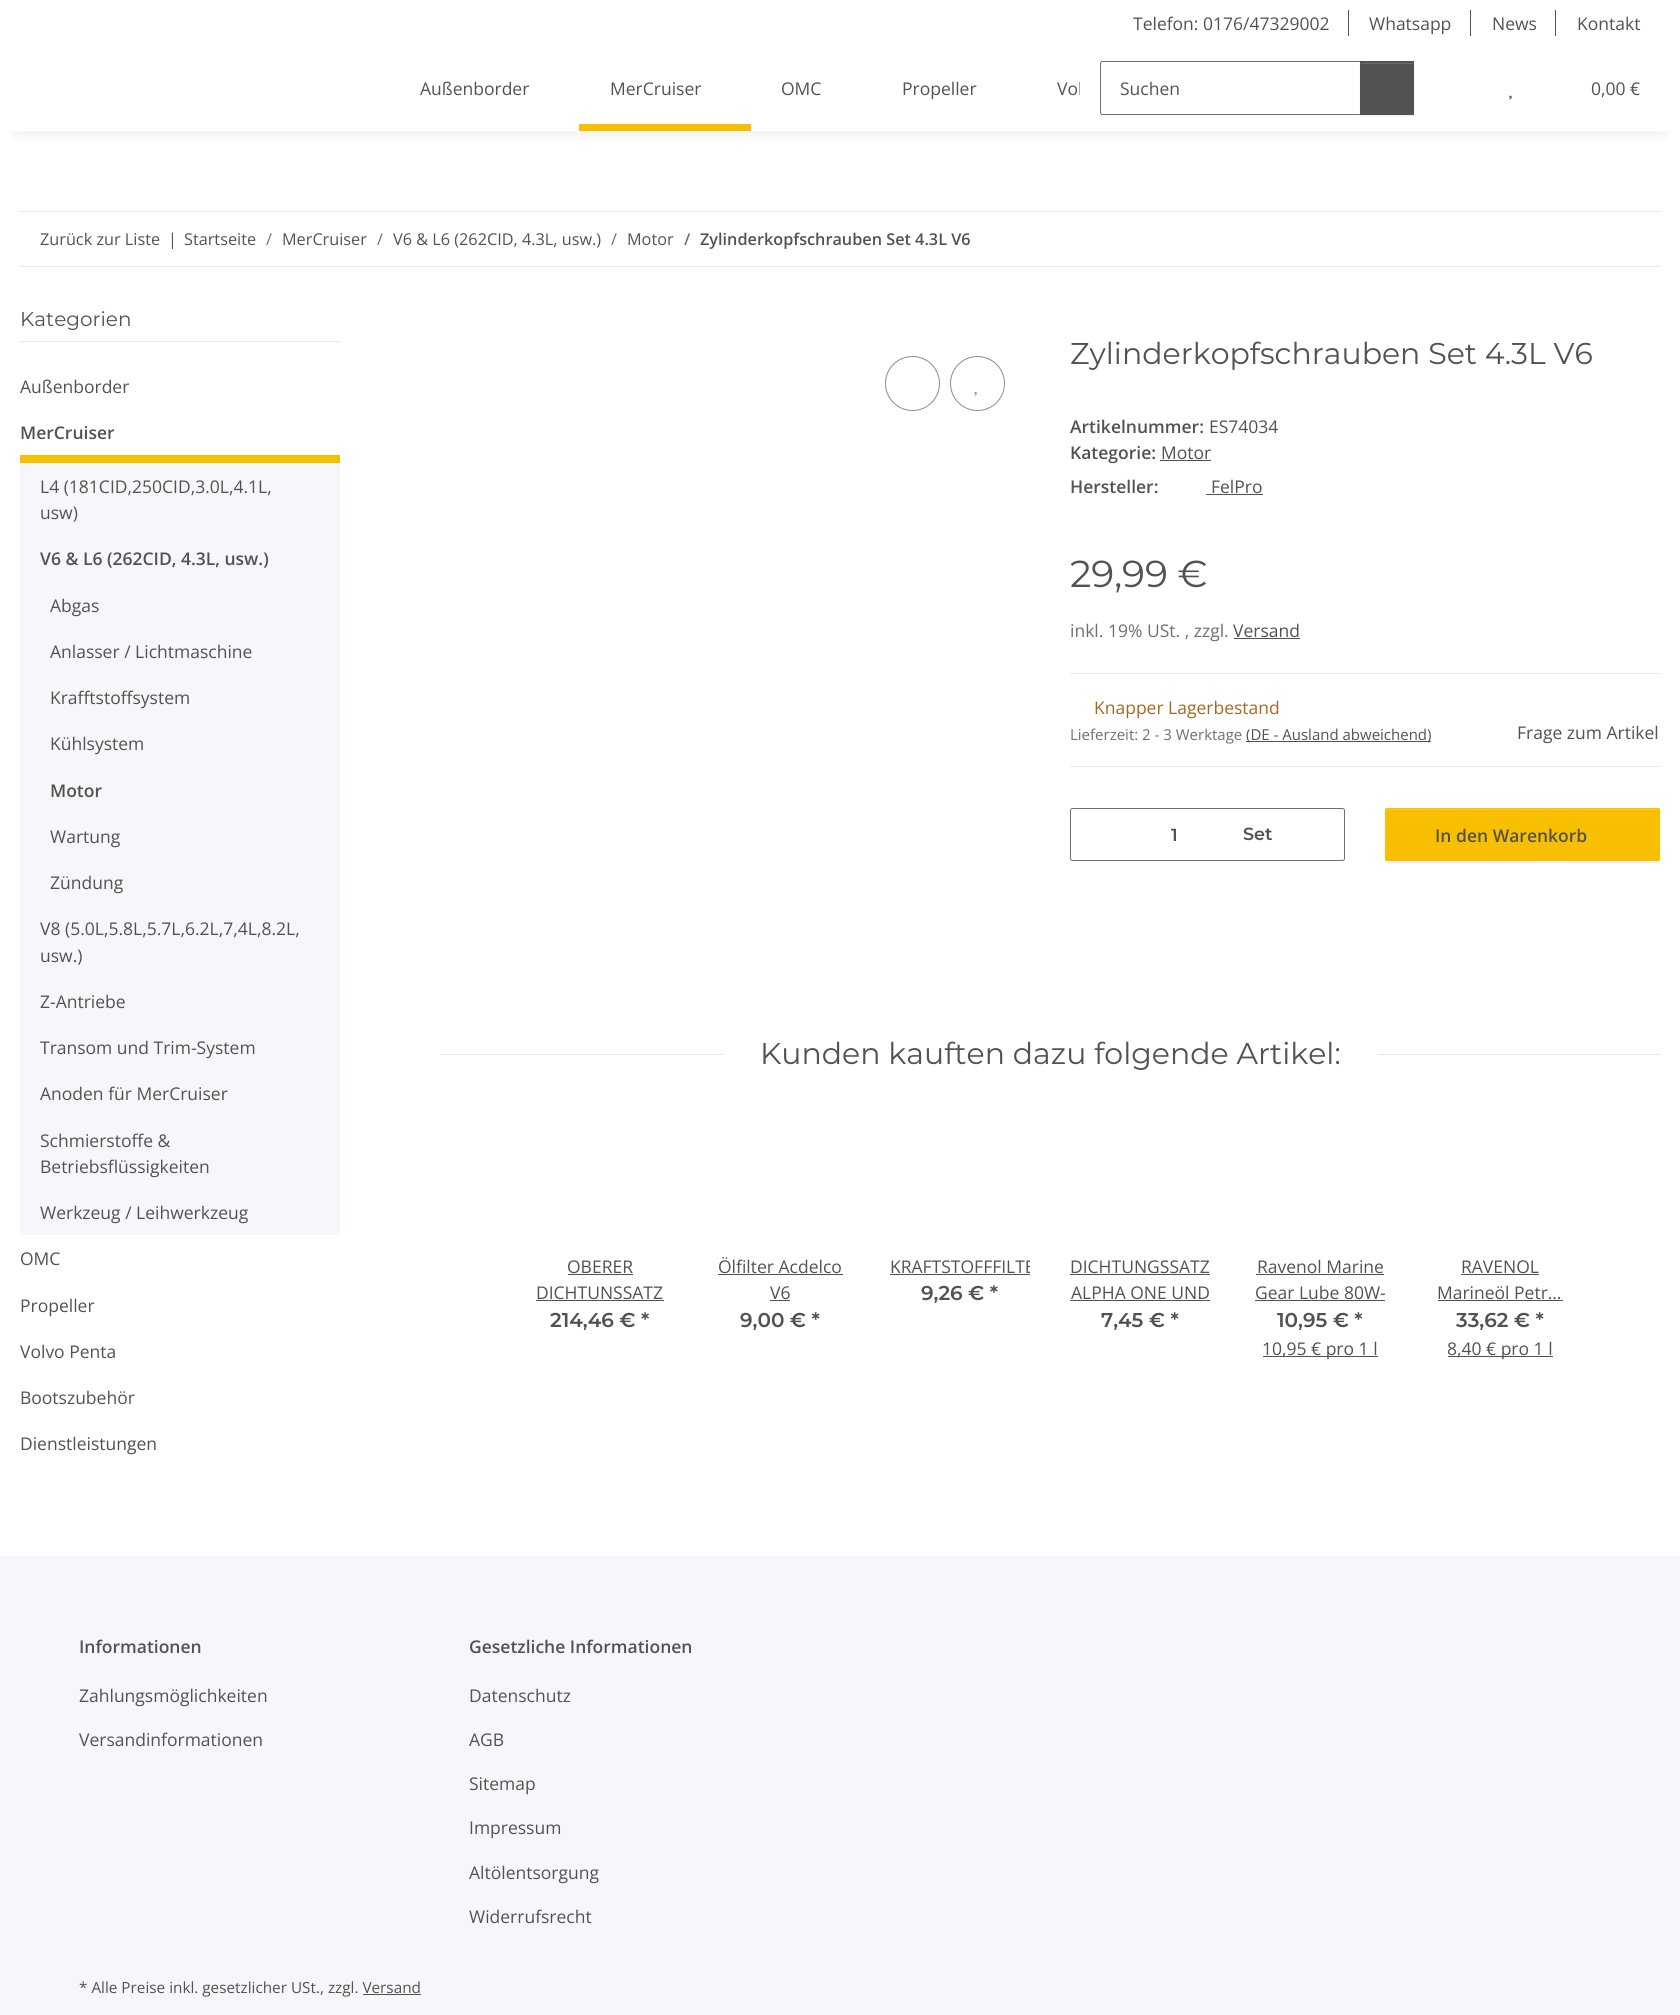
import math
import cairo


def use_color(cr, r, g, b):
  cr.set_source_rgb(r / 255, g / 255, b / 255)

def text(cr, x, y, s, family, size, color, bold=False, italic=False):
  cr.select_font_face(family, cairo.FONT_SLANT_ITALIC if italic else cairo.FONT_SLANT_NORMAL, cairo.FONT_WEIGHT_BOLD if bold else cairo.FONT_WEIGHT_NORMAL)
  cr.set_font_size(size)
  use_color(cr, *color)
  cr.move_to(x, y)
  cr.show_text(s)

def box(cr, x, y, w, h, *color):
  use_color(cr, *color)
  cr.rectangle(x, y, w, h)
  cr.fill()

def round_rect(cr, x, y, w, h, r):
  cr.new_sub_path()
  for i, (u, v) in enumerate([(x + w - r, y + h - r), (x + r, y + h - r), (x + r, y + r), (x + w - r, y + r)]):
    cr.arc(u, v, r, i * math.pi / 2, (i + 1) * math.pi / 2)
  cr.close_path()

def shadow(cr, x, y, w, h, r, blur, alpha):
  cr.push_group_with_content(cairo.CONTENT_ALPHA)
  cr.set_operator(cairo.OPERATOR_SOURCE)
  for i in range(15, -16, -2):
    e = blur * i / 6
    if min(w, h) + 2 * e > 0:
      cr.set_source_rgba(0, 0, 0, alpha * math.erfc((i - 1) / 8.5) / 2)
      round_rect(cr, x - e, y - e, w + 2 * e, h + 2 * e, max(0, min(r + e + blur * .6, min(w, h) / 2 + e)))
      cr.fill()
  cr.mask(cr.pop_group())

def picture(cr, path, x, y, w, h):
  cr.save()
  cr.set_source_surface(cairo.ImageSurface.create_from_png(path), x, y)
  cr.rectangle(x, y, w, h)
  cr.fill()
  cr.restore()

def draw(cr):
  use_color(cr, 245, 247, 250)
  cr.paint()
  box(cr, 0, 131, 1680, 1425, 255, 255, 255)
  use_color(cr, 0, 0, 0)
  shadow(cr, 15, 81, 1650, 55, 0, 5.5, 0.06)
  box(cr, 0, 0, 1680, 131, 255, 255, 255)
  box(cr, 1348, 10, 1, 26, 82, 82, 82)
  box(cr, 1470, 10, 1, 26, 82, 82, 82)
  box(cr, 1555, 10, 1, 26, 82, 82, 82)
  box(cr, 579, 124, 172, 7, 248, 191, 0)
  cr.new_path()
  cr.move_to(1102.5, 61.5)
  cr.line_to(1360.5, 61.5)
  cr.line_to(1360.5, 114.5)
  cr.line_to(1102.5, 114.5)
  cr.curve_to(1101.5, 114.5, 1100.5, 113.5, 1100.5, 112.5)
  cr.line_to(1100.5, 63.5)
  cr.curve_to(1100.5, 62.5, 1101.5, 61.5, 1102.5, 61.5)
  cr.close_path()
  use_color(cr, 112, 112, 112)
  cr.set_line_width(1)
  cr.stroke()
  use_color(cr, 0, 0, 0)
  shadow(cr, 1360, 63, 54, 53, 0, 0.5, 0.07)
  box(cr, 1360, 61, 54, 54, 82, 82, 82)
  box(cr, 1361, 63, 52, 1, 108, 108, 108)
  picture(cr, "img_01.png", 1508, 95, 4, 5)
  box(cr, 20, 211, 1640, 1, 235, 235, 235)
  box(cr, 20, 266, 1640, 1, 235, 235, 235)
  box(cr, 20, 341, 320, 1, 235, 235, 235)
  box(cr, 20, 455, 320, 8, 248, 191, 0)
  box(cr, 20, 463, 320, 772, 245, 247, 250)
  cr.arc(912.5, 383.5, 27, 0, 2 * math.pi)
  use_color(cr, 141, 141, 141)
  cr.stroke()
  cr.arc(977.5, 383.5, 27, 0, 2 * math.pi)
  cr.stroke()
  picture(cr, "img_02.png", 974, 392, 3, 4)
  box(cr, 1160, 460, 51, 1, 82, 82, 82)
  box(cr, 1206, 494, 57, 1, 82, 82, 82)
  box(cr, 1234, 638, 66, 1, 82, 82, 82)
  box(cr, 1070, 673, 590, 1, 235, 235, 235)
  box(cr, 1070, 766, 590, 1, 235, 235, 235)
  box(cr, 1246, 741, 185, 1, 82, 82, 82)
  round_rect(cr, 1070.5, 808.5, 274, 52, 2)
  use_color(cr, 112, 112, 112)
  cr.stroke()
  use_color(cr, 0, 0, 0)
  shadow(cr, 1385, 809, 275, 54, 2.5, 0.5, 0.07)
  use_color(cr, 248, 191, 0)
  round_rect(cr, 1385, 808, 275, 53, 2.5)
  cr.fill()
  use_color(cr, 249, 201, 38)
  cr.new_path()
  cr.move_to(1388, 810)
  cr.line_to(1658, 810)
  cr.line_to(1659, 811)
  cr.curve_to(1659, 810, 1659, 809, 1658, 809)
  cr.line_to(1387, 809)
  cr.line_to(1386, 809)
  cr.line_to(1386, 811)
  cr.close_path()
  cr.fill()
  round_rect(cr, 1385.5, 808.5, 274, 52, 2)
  use_color(cr, 248, 191, 0)
  cr.stroke()
  box(cr, 440, 1054, 283, 1, 230, 230, 230)
  box(cr, 1378, 1054, 282, 1, 230, 230, 230)
  box(cr, 568, 1274, 65, 1, 82, 82, 82)
  box(cr, 536, 1300, 128, 1, 82, 82, 82)
  box(cr, 718, 1274, 125, 1, 82, 82, 82)
  box(cr, 770, 1300, 20, 1, 82, 82, 82)
  box(cr, 890, 1274, 140, 1, 82, 82, 82)
  box(cr, 1070, 1274, 140, 1, 82, 82, 82)
  box(cr, 1070, 1300, 140, 1, 82, 82, 82)
  box(cr, 1256, 1274, 128, 1, 82, 82, 82)
  box(cr, 1255, 1300, 130, 1, 82, 82, 82)
  box(cr, 1263, 1356, 115, 1, 82, 82, 82)
  box(cr, 1461, 1274, 78, 1, 82, 82, 82)
  box(cr, 1438, 1300, 125, 1, 82, 82, 82)
  box(cr, 1448, 1356, 105, 1, 82, 82, 82)
  box(cr, 363, 1994, 58, 1, 82, 82, 82)
  text(cr, 1133, 30, "Telefon: 0176/47329002", "Open Sans", 17.5, (82, 82, 82))
  text(cr, 1369, 30, "Whatsapp", "Open Sans", 17.5, (82, 82, 82))
  text(cr, 1492, 30, "News", "Open Sans", 17.5, (82, 82, 82))
  text(cr, 1577, 30, "Kontakt", "Open Sans", 17.5, (82, 82, 82))
  text(cr, 420, 95, "Außenborder", "Open Sans", 17.5, (82, 82, 82))
  text(cr, 610, 95, "MerCruiser", "Open Sans", 17.5, (82, 82, 82))
  text(cr, 781, 95, "OMC", "Open Sans", 17.5, (82, 82, 82))
  text(cr, 902, 95, "Propeller", "Open Sans", 17.5, (82, 82, 82))
  cr.save()
  cr.rectangle(1056, 75, 24, 26)
  cr.clip()
  text(cr, 1057, 95, "Vol", "Open Sans", 17.5, (82, 82, 82))
  cr.restore()
  text(cr, 1120, 95, "Suchen", "Open Sans", 17.5, (82, 82, 82))
  text(cr, 1591, 95, "0,00 €", "Open Sans", 17.5, (82, 82, 82))
  text(cr, 40, 245, "Zurück zur Liste", "Open Sans", 16.25, (82, 82, 82))
  text(cr, 168, 245, "|", "Open Sans", 16.25, (82, 82, 82))
  text(cr, 184, 245, "Startseite", "Open Sans", 16.25, (82, 82, 82))
  text(cr, 266, 245, "/", "Open Sans", 16.25, (112, 112, 112))
  text(cr, 282, 245, "MerCruiser", "Open Sans", 16.25, (82, 82, 82))
  text(cr, 377, 245, "/", "Open Sans", 16.25, (112, 112, 112))
  text(cr, 393, 245, "V6 & L6 (262CID, 4.3L, usw.)", "Open Sans", 16.25, (82, 82, 82))
  text(cr, 611, 245, "/", "Open Sans", 16.25, (112, 112, 112))
  text(cr, 627, 245, "Motor", "Open Sans", 16.25, (82, 82, 82))
  text(cr, 684, 245, "/", "Open Sans SemiBold", 16.25, (112, 112, 112))
  text(cr, 700, 245, "Zylinderkopfschrauben Set 4.3L V6", "Open Sans SemiBold", 16.25, (82, 82, 82))
  text(cr, 20, 326, "Kategorien", "Montserrat", 20, (82, 82, 82))
  text(cr, 20, 393, "Außenborder", "Open Sans", 17.5, (82, 82, 82))
  text(cr, 20, 439, "MerCruiser", "Open Sans SemiBold", 17.5, (82, 82, 82))
  text(cr, 40, 493, "L4 (181CID,250CID,3.0L,4.1L,", "Open Sans", 17.5, (82, 82, 82))
  text(cr, 40, 519, "usw)", "Open Sans", 17.5, (82, 82, 82))
  text(cr, 40, 565, "V6 & L6 (262CID, 4.3L, usw.)", "Open Sans SemiBold", 17.5, (82, 82, 82))
  text(cr, 50, 612, "Abgas", "Open Sans", 17.5, (82, 82, 82))
  text(cr, 50, 658, "Anlasser / Lichtmaschine", "Open Sans", 17.5, (82, 82, 82))
  text(cr, 50, 704, "Krafftstoffsystem", "Open Sans", 17.5, (82, 82, 82))
  text(cr, 50, 750, "Kühlsystem", "Open Sans", 17.5, (82, 82, 82))
  text(cr, 50, 797, "Motor", "Open Sans SemiBold", 17.5, (82, 82, 82))
  text(cr, 50, 843, "Wartung", "Open Sans", 17.5, (82, 82, 82))
  text(cr, 50, 889, "Zündung", "Open Sans", 17.5, (82, 82, 82))
  text(cr, 40, 935, "V8 (5.0L,5.8L,5.7L,6.2L,7,4L,8.2L,", "Open Sans", 17.5, (82, 82, 82))
  text(cr, 40, 962, "usw.)", "Open Sans", 17.5, (82, 82, 82))
  text(cr, 40, 1008, "Z-Antriebe", "Open Sans", 17.5, (82, 82, 82))
  text(cr, 40, 1054, "Transom und Trim-System", "Open Sans", 17.5, (82, 82, 82))
  text(cr, 40, 1100, "Anoden für MerCruiser", "Open Sans", 17.5, (82, 82, 82))
  text(cr, 40, 1147, "Schmierstoffe &", "Open Sans", 17.5, (82, 82, 82))
  text(cr, 40, 1173, "Betriebsflüssigkeiten", "Open Sans", 17.5, (82, 82, 82))
  text(cr, 40, 1219, "Werkzeug / Leihwerkzeug", "Open Sans", 17.5, (82, 82, 82))
  text(cr, 20, 1265, "OMC", "Open Sans", 17.5, (82, 82, 82))
  text(cr, 20, 1312, "Propeller", "Open Sans", 17.5, (82, 82, 82))
  text(cr, 20, 1358, "Volvo Penta", "Open Sans", 17.5, (82, 82, 82))
  text(cr, 20, 1404, "Bootszubehör", "Open Sans", 17.5, (82, 82, 82))
  text(cr, 20, 1450, "Dienstleistungen", "Open Sans", 17.5, (82, 82, 82))
  text(cr, 1070, 364, "Zylinderkopfschrauben Set 4.3L V6", "Montserrat", 30, (82, 82, 82))
  text(cr, 1070, 433, "Artikelnummer:", "Open Sans SemiBold", 17.5, (82, 82, 82))
  text(cr, 1209, 433, "ES74034", "Open Sans", 17.5, (82, 82, 82))
  text(cr, 1070, 459, "Kategorie:", "Open Sans SemiBold", 17.5, (82, 82, 82))
  text(cr, 1161, 459, "Motor", "Open Sans", 17.5, (82, 82, 82))
  text(cr, 1070, 493, "Hersteller:", "Open Sans SemiBold", 17.5, (82, 82, 82))
  text(cr, 1211, 493, "FelPro", "Open Sans", 17.5, (82, 82, 82))
  text(cr, 1070, 587, "29,99 €", "Montserrat", 37.5, (82, 82, 82))
  text(cr, 1070, 637, "inkl. 19% USt. , zzgl.", "Open Sans", 17.5, (112, 112, 112))
  text(cr, 1233, 637, "Versand", "Open Sans", 17.5, (82, 82, 82))
  text(cr, 1094, 714, "Knapper Lagerbestand", "Open Sans", 17.5, (165, 104, 35))
  text(cr, 1070, 740, "Lieferzeit: 2 - 3 Werktage", "Open Sans", 15, (112, 112, 112))
  text(cr, 1246, 740, "(DE - Ausland abweichend)", "Open Sans", 15, (82, 82, 82))
  text(cr, 1517, 739, "Frage zum Artikel", "Open Sans", 17.5, (82, 82, 82))
  text(cr, 1171, 841, "1", "Montserrat SemiBold", 17.5, (82, 82, 82))
  text(cr, 1243, 840, "Set", "Montserrat SemiBold", 17.5, (82, 82, 82))
  text(cr, 1435, 842, "In den Warenkorb", "Open Sans SemiBold", 17.5, (82, 82, 82))
  text(cr, 760, 1064, "Kunden kauften dazu folgende Artikel:", "Montserrat", 30, (82, 82, 82))
  text(cr, 567, 1273, "OBERER", "Open Sans", 17.5, (82, 82, 82))
  text(cr, 536, 1299, "DICHTUNSSATZ", "Open Sans", 17.5, (82, 82, 82))
  text(cr, 550, 1327, "214,46 € *", "Montserrat SemiBold", 20, (82, 82, 82))
  text(cr, 718, 1273, "Ölfilter Acdelco", "Open Sans", 17.5, (82, 82, 82))
  text(cr, 770, 1299, "V6", "Open Sans", 17.5, (82, 82, 82))
  text(cr, 740, 1327, "9,00 € *", "Montserrat SemiBold", 20, (82, 82, 82))
  cr.save()
  cr.rectangle(890, 1253, 140, 26)
  cr.clip()
  text(cr, 890, 1273, "KRAFTSTOFFFILTE", "Open Sans", 17.5, (82, 82, 82))
  cr.restore()
  text(cr, 921, 1300, "9,26 € *", "Montserrat SemiBold", 20, (82, 82, 82))
  text(cr, 1070, 1273, "DICHTUNGSSATZ", "Open Sans", 17.5, (82, 82, 82))
  text(cr, 1071, 1299, "ALPHA ONE UND", "Open Sans", 17.5, (82, 82, 82))
  text(cr, 1101, 1327, "7,45 € *", "Montserrat SemiBold", 20, (82, 82, 82))
  text(cr, 1257, 1273, "Ravenol Marine", "Open Sans", 17.5, (82, 82, 82))
  text(cr, 1255, 1299, "Gear Lube 80W-", "Open Sans", 17.5, (82, 82, 82))
  text(cr, 1277, 1327, "10,95 € *", "Montserrat SemiBold", 20, (82, 82, 82))
  text(cr, 1262, 1355, "10,95 € pro 1 l", "Open Sans", 17.5, (82, 82, 82))
  text(cr, 1461, 1273, "RAVENOL", "Open Sans", 17.5, (82, 82, 82))
  text(cr, 1437, 1299, "Marineöl Petr…", "Open Sans", 17.5, (82, 82, 82))
  text(cr, 1456, 1327, "33,62 € *", "Montserrat SemiBold", 20, (82, 82, 82))
  text(cr, 1447, 1355, "8,40 € pro 1 l", "Open Sans", 17.5, (82, 82, 82))
  text(cr, 79, 1653, "Informationen", "Open Sans SemiBold", 17.5, (82, 82, 82))
  text(cr, 79, 1702, "Zahlungsmöglichkeiten", "Open Sans", 17.5, (82, 82, 82))
  text(cr, 79, 1746, "Versandinformationen", "Open Sans", 17.5, (82, 82, 82))
  text(cr, 469, 1653, "Gesetzliche Informationen", "Open Sans SemiBold", 17.5, (82, 82, 82))
  text(cr, 469, 1702, "Datenschutz", "Open Sans", 17.5, (82, 82, 82))
  text(cr, 469, 1746, "AGB", "Open Sans", 17.5, (82, 82, 82))
  text(cr, 469, 1790, "Sitemap", "Open Sans", 17.5, (82, 82, 82))
  text(cr, 469, 1834, "Impressum", "Open Sans", 17.5, (82, 82, 82))
  text(cr, 469, 1879, "Altölentsorgung", "Open Sans", 17.5, (82, 82, 82))
  text(cr, 469, 1923, "Widerrufsrecht", "Open Sans", 17.5, (82, 82, 82))
  text(cr, 79, 1993, "* Alle Preise inkl. gesetzlicher USt., zzgl. Versand", "Open Sans", 15.3, (82, 82, 82))


surface = cairo.ImageSurface(cairo.FORMAT_RGB24, 1680, 2015)
cr = cairo.Context(surface)
options = cairo.FontOptions()
options.set_hint_metrics(cairo.HINT_METRICS_OFF)
options.set_hint_style(cairo.HINT_STYLE_NONE)
cr.set_font_options(options)
cr.set_miter_limit(4)
draw(cr)
surface.write_to_png("out.png")
